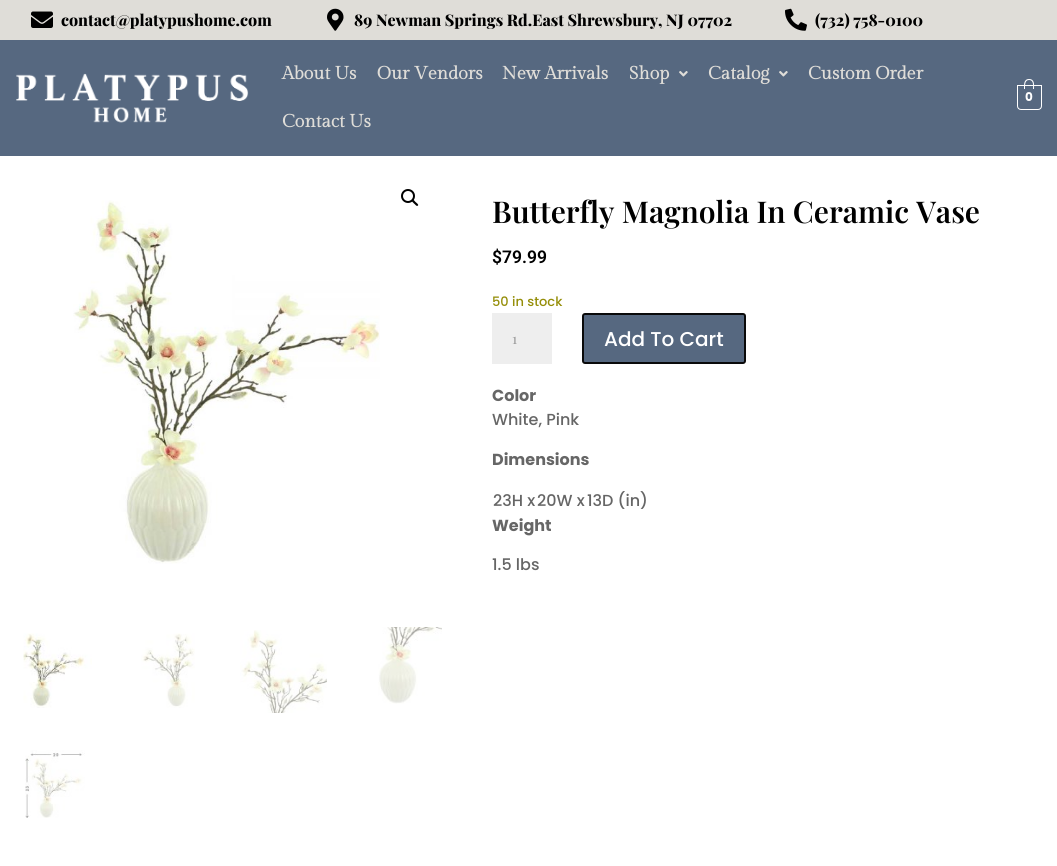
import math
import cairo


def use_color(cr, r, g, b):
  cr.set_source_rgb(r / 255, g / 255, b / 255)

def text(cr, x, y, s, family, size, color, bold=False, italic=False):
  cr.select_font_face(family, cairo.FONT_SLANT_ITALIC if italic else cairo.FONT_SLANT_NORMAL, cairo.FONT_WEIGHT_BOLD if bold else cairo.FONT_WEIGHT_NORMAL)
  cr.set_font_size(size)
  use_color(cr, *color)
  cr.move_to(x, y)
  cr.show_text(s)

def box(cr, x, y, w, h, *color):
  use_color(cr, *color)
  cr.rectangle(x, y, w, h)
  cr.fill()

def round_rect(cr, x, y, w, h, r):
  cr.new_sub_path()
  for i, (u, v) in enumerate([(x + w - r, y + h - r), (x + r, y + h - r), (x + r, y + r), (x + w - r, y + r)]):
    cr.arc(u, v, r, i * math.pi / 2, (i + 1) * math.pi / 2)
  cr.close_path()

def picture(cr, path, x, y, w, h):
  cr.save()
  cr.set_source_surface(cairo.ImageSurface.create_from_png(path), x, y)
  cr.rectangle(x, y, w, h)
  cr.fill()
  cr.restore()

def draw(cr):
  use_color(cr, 255, 255, 255)
  cr.paint()
  box(cr, 0, 0, 1057, 40, 223, 221, 216)
  picture(cr, "img_01.png", 31, 11, 22, 17)
  picture(cr, "img_02.png", 327, 8, 17, 23)
  picture(cr, "img_03.png", 785, 8, 22, 23)
  box(cr, 0, 40, 1057, 116, 86, 104, 128)
  picture(cr, "img_04.png", 16, 73, 233, 50)
  picture(cr, "img_05.png", 679, 71, 9, 6)
  picture(cr, "img_05.png", 779, 71, 9, 6)
  cr.new_path()
  cr.move_to(1017.5, 85.5)
  cr.line_to(1041.5, 85.5)
  cr.line_to(1041.5, 106)
  cr.curve_to(1041.5, 108, 1040, 109.5, 1038, 109.5)
  cr.line_to(1021, 109.5)
  cr.curve_to(1019, 109.5, 1017.5, 108, 1017.5, 106)
  cr.close_path()
  use_color(cr, 255, 255, 255)
  cr.set_line_width(1)
  cr.stroke()
  cr.set_fill_rule(cairo.FILL_RULE_EVEN_ODD)
  cr.new_path()
  cr.move_to(1029, 79)
  cr.curve_to(1035, 79, 1034, 85, 1034, 89)
  cr.line_to(1024, 89)
  cr.curve_to(1024, 85, 1023.5, 79, 1029, 79)
  cr.close_path()
  cr.move_to(1029, 80)
  cr.curve_to(1034, 80, 1033, 86, 1033, 89)
  cr.line_to(1025, 89)
  cr.curve_to(1025, 86, 1024.5, 80, 1029, 80)
  cr.close_path()
  cr.fill()
  cr.arc(408, 196, 6, 0, 2 * math.pi)
  use_color(cr, 0, 0, 0)
  cr.set_line_width(2)
  cr.stroke()
  cr.set_fill_rule(cairo.FILL_RULE_WINDING)
  cr.new_path()
  cr.move_to(412, 200)
  cr.curve_to(413.5, 199, 415, 201.5, 415.5, 202)
  cr.curve_to(416, 202.5, 419, 204.5, 418, 205.5)
  cr.curve_to(416.5, 207, 415, 204, 414, 203.5)
  cr.curve_to(413.5, 203, 411, 201, 412, 200)
  cr.close_path()
  cr.fill()
  picture(cr, "img_06.png", 73, 200, 307, 364)
  picture(cr, "img_07.png", 23, 633, 69, 75)
  picture(cr, "img_08.png", 141, 633, 54, 75)
  picture(cr, "img_09.png", 240, 630, 87, 83)
  picture(cr, "img_10.png", 378, 627, 64, 77)
  picture(cr, "img_11.png", 25, 750, 60, 68)
  box(cr, 492, 313, 60, 51, 238, 238, 238)
  use_color(cr, 86, 104, 128)
  round_rect(cr, 583, 314, 162, 49, 2)
  cr.fill_preserve()
  use_color(cr, 10, 10, 10)
  cr.stroke()
  text(cr, 61, 26, "contact@platypushome.com", "Playfair Display ExtraBold", 16, (0, 0, 0))
  text(cr, 354, 26, "89 Newman Springs Rd.East Shrewsbury, NJ 07702", "Playfair Display ExtraBold", 16, (0, 0, 0))
  text(cr, 815, 26, "(732) 758-0100", "Playfair Display ExtraBold", 16, (0, 0, 0))
  text(cr, 282, 79, "About Us", "Gilda Display", 18, (223, 221, 216), bold=True)
  text(cr, 377, 79, "Our Vendors", "Gilda Display", 18, (223, 221, 216), bold=True)
  text(cr, 502, 79, "New Arrivals", "Gilda Display", 18, (223, 221, 216), bold=True)
  text(cr, 629, 79, "Shop", "Gilda Display", 18, (223, 221, 216), bold=True)
  text(cr, 708, 79, "Catalog", "Gilda Display", 18, (223, 221, 216), bold=True)
  text(cr, 808, 79, "Custom Order", "Gilda Display", 18, (223, 221, 216), bold=True)
  text(cr, 282, 127, "Contact Us", "Gilda Display", 18, (223, 221, 216), bold=True)
  text(cr, 1025, 101, "0", "Poppins", 12, (255, 255, 255), bold=True)
  text(cr, 492, 223, "Butterfly Magnolia In Ceramic Vase", "Playfair Display SemiBold", 30, (0, 0, 0))
  text(cr, 492, 263, "$79.99", "Roboto SemiBold", 17.5, (0, 0, 0))
  text(cr, 492, 306, "50 in stock", "Poppins Medium", 13, (149, 142, 9))
  text(cr, 512, 344, "1", "Playfair Display", 14, (153, 153, 153))
  text(cr, 604, 346, "Add To Cart", "Poppins Medium", 20, (255, 255, 255))
  text(cr, 492, 401, "Color", "Poppins", 16, (102, 102, 102), bold=True)
  text(cr, 492, 425, "White, Pink", "Poppins Medium", 16, (102, 102, 102))
  text(cr, 492, 465, "Dimensions", "Poppins", 16, (102, 102, 102), bold=True)
  text(cr, 493, 506, "23H x", "Poppins Medium", 16, (102, 102, 102))
  text(cr, 537, 506, "20W x", "Poppins Medium", 16, (102, 102, 102))
  text(cr, 587, 506, "13D (in)", "Poppins Medium", 16, (102, 102, 102))
  text(cr, 492, 531, "Weight", "Poppins", 16, (102, 102, 102), bold=True)
  text(cr, 492, 570, "1.5 lbs", "Poppins Medium", 16, (102, 102, 102))


surface = cairo.ImageSurface(cairo.FORMAT_RGB24, 1057, 866)
cr = cairo.Context(surface)
options = cairo.FontOptions()
options.set_hint_metrics(cairo.HINT_METRICS_OFF)
options.set_hint_style(cairo.HINT_STYLE_NONE)
cr.set_font_options(options)
cr.set_miter_limit(4)
draw(cr)
surface.write_to_png("out.png")
